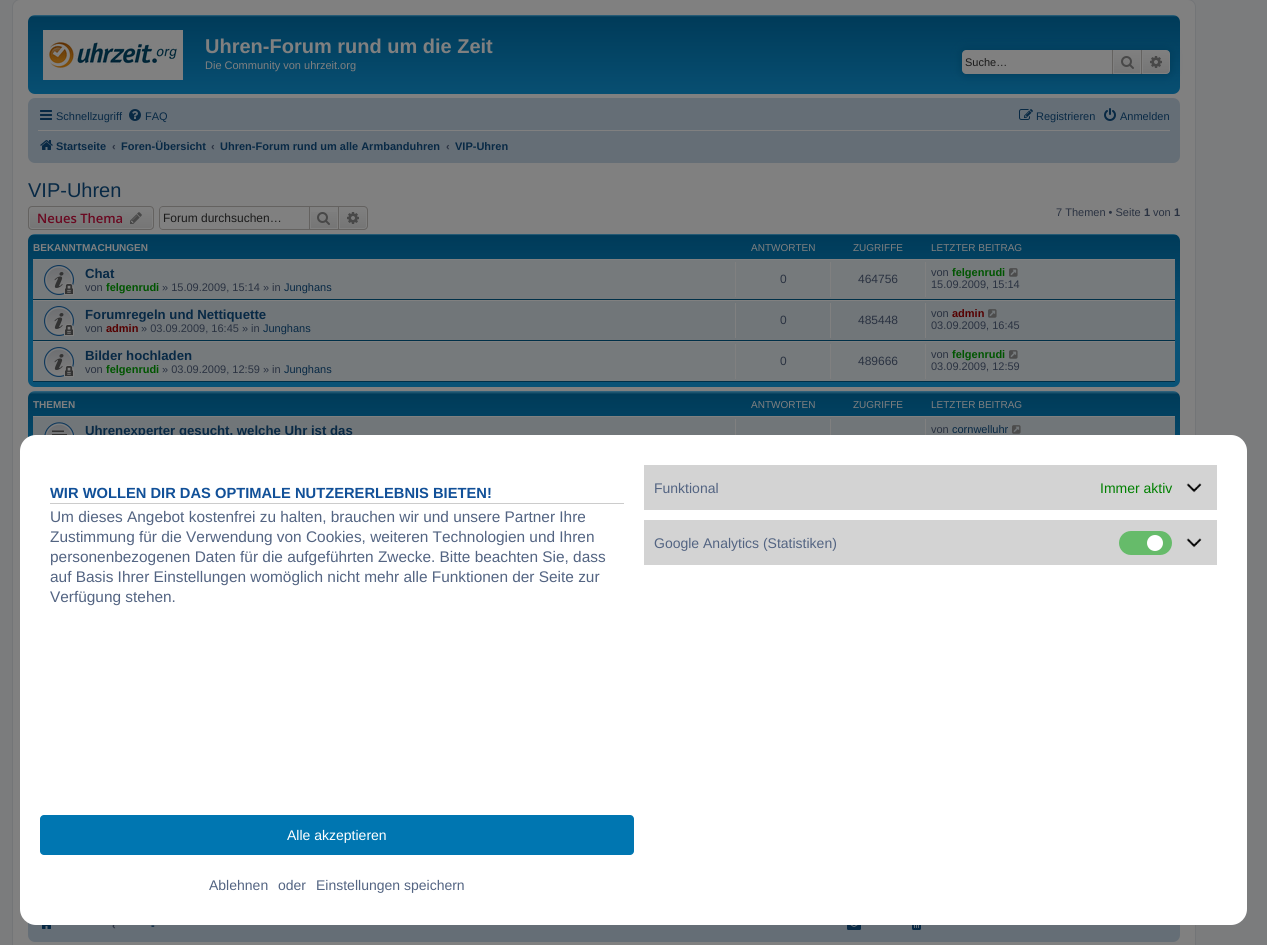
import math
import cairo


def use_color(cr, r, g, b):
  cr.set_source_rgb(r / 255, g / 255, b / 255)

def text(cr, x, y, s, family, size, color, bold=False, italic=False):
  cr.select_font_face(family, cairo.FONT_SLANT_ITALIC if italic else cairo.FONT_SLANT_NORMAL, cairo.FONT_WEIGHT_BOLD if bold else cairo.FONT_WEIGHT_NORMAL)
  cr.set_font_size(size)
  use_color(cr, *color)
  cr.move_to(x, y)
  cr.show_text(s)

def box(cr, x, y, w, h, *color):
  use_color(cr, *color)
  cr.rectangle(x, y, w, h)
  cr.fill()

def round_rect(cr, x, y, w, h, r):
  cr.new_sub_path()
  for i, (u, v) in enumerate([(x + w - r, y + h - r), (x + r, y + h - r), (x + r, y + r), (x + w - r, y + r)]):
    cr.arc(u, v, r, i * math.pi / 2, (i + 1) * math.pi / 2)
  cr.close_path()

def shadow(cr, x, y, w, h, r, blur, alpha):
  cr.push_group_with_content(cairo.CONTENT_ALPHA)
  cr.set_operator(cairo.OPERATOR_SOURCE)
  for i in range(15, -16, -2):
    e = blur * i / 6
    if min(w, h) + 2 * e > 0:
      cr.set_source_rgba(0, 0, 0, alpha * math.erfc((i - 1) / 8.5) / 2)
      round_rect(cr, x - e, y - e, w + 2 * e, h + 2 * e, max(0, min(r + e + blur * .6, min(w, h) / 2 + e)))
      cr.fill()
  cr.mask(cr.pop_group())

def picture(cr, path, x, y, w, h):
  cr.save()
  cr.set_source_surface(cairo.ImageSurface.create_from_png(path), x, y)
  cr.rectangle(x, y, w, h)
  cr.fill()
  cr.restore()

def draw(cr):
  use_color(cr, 123, 124, 125)
  cr.paint()
  use_color(cr, 128, 128, 128)
  round_rect(cr, 12.5, -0.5, 1183, 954, 7.5)
  cr.fill_preserve()
  use_color(cr, 115, 117, 119)
  cr.set_line_width(1)
  cr.stroke()
  gradient = cairo.LinearGradient(604, 15, 604, 107)
  gradient.add_color_stop_rgba(0, 0.208, 0.404, 0.502, 1)
  gradient.add_color_stop_rgba(0.02, 0, 0.231, 0.349, 1)
  gradient.add_color_stop_rgba(1, 0.035, 0.322, 0.463, 1)
  cr.set_source(gradient)
  round_rect(cr, 28, 15, 1152, 79, 7)
  cr.fill()
  picture(cr, "img_01.png", 43, 30, 140, 50)
  use_color(cr, 0, 59, 88)
  shadow(cr, 962, 50, 208, 24, 4, 5, 1)
  use_color(cr, 128, 128, 128)
  cr.new_path()
  cr.move_to(966, 50)
  cr.line_to(1112, 50)
  cr.line_to(1112, 74)
  cr.line_to(966, 74)
  cr.curve_to(964, 74, 962, 72, 962, 70)
  cr.line_to(962, 54)
  cr.curve_to(962, 52, 964, 50, 966, 50)
  cr.close_path()
  cr.fill()
  gradient = cairo.LinearGradient(1127, 50, 1127, 74)
  gradient.add_color_stop_rgba(0, 0.502, 0.502, 0.502, 1)
  gradient.add_color_stop_rgba(1, 0.459, 0.459, 0.459, 1)
  cr.set_source(gradient)
  cr.rectangle(1114, 51, 26, 22)
  cr.fill()
  cr.rectangle(1113.5, 50.5, 27, 23)
  use_color(cr, 128, 128, 128)
  cr.stroke()
  box(cr, 1141, 50, 1, 24, 100, 98, 96)
  box(cr, 1112, 50, 1, 24, 100, 98, 96)
  picture(cr, "img_02.png", 1121, 56, 13, 13)
  gradient = cairo.LinearGradient(1156, 50, 1156, 74)
  gradient.add_color_stop_rgba(0, 0.502, 0.502, 0.502, 1)
  gradient.add_color_stop_rgba(1, 0.459, 0.459, 0.459, 1)
  cr.set_source(gradient)
  cr.new_path()
  cr.move_to(1142.5, 50.5)
  cr.line_to(1166, 50.5)
  cr.curve_to(1168, 50.5, 1169.5, 52, 1169.5, 54)
  cr.line_to(1169.5, 70)
  cr.curve_to(1169.5, 72, 1168, 73.5, 1166, 73.5)
  cr.line_to(1142.5, 73.5)
  cr.close_path()
  cr.fill_preserve()
  use_color(cr, 128, 128, 128)
  cr.stroke()
  picture(cr, "img_03.png", 1150, 56, 12, 12)
  use_color(cr, 101, 110, 118)
  round_rect(cr, 28, 98, 1152, 65, 7)
  cr.fill()
  picture(cr, "img_04.png", 40, 110, 12, 10)
  picture(cr, "img_05.png", 129, 109, 12, 12)
  picture(cr, "img_06.png", 1019, 109, 14, 11)
  picture(cr, "img_07.png", 1104, 108, 12, 13)
  box(cr, 38, 130, 1132, 1, 128, 128, 128)
  picture(cr, "img_08.png", 40, 140, 13, 10)
  cr.save()
  round_rect(cr, 28, 206, 126, 24, 4)
  cr.clip()
  gradient = cairo.LinearGradient(91, 207, 91, 229)
  gradient.add_color_stop_rgba(0, 0.502, 0.502, 0.502, 1)
  gradient.add_color_stop_rgba(1, 0.459, 0.459, 0.459, 1)
  cr.set_source(gradient)
  cr.rectangle(28, 207, 126, 22)
  cr.fill()
  cr.restore()
  round_rect(cr, 29.5, 207.5, 123, 21, 2.5)
  cr.stroke()
  round_rect(cr, 28.5, 206.5, 125, 23, 3.5)
  use_color(cr, 100, 98, 96)
  cr.stroke()
  picture(cr, "img_09.png", 130, 212, 12, 12)
  cr.set_fill_rule(cairo.FILL_RULE_EVEN_ODD)
  cr.new_path()
  cr.move_to(163, 206)
  cr.line_to(309, 206)
  cr.line_to(309, 230)
  cr.line_to(163, 230)
  cr.curve_to(161, 230, 159, 228, 159, 226)
  cr.line_to(159, 210)
  cr.curve_to(159, 208, 161, 206, 163, 206)
  cr.close_path()
  cr.move_to(163, 207)
  cr.line_to(309, 207)
  cr.line_to(309, 229)
  cr.line_to(163, 229)
  cr.curve_to(161, 229, 160, 228, 160, 226)
  cr.line_to(160, 210)
  cr.curve_to(160, 208, 161, 207, 163, 207)
  cr.close_path()
  cr.fill()
  gradient = cairo.LinearGradient(324, 207, 324, 229)
  gradient.add_color_stop_rgba(0, 0.502, 0.502, 0.502, 1)
  gradient.add_color_stop_rgba(1, 0.459, 0.459, 0.459, 1)
  cr.set_source(gradient)
  cr.rectangle(311, 212, 26, 16)
  cr.fill()
  cr.rectangle(309.5, 206.5, 29, 23)
  use_color(cr, 100, 98, 96)
  cr.stroke()
  picture(cr, "img_10.png", 317, 212, 13, 13)
  gradient = cairo.LinearGradient(353, 207, 353, 229)
  gradient.add_color_stop_rgba(0, 0.502, 0.502, 0.502, 1)
  gradient.add_color_stop_rgba(1, 0.459, 0.459, 0.459, 1)
  cr.set_source(gradient)
  cr.new_path()
  cr.move_to(339.5, 207.5)
  cr.line_to(364, 207.5)
  cr.curve_to(365.5, 207.5, 366.5, 208.5, 366.5, 210)
  cr.line_to(366.5, 226)
  cr.curve_to(366.5, 227.5, 365.5, 228.5, 364, 228.5)
  cr.line_to(339.5, 228.5)
  cr.close_path()
  cr.fill_preserve()
  use_color(cr, 128, 128, 128)
  cr.stroke()
  use_color(cr, 100, 98, 96)
  cr.new_path()
  cr.move_to(339, 206)
  cr.line_to(364, 206)
  cr.curve_to(366, 206, 368, 208, 368, 210)
  cr.line_to(368, 226)
  cr.curve_to(368, 228, 366, 230, 364, 230)
  cr.line_to(339, 230)
  cr.close_path()
  cr.move_to(339, 207)
  cr.line_to(364, 207)
  cr.curve_to(365.5, 207, 367, 208.5, 367, 210)
  cr.line_to(367, 226)
  cr.curve_to(367, 227.5, 365.5, 229, 364, 229)
  cr.line_to(339, 229)
  cr.close_path()
  cr.fill()
  picture(cr, "img_11.png", 347, 212, 12, 12)
  gradient = cairo.LinearGradient(604, 234, 604, 387)
  gradient.add_color_stop_rgba(0, 0.208, 0.404, 0.502, 1)
  gradient.add_color_stop_rgba(0.01, 0, 0.231, 0.349, 1)
  gradient.add_color_stop_rgba(0.6, 0.035, 0.322, 0.463, 1)
  gradient.add_color_stop_rgba(1, 0.035, 0.322, 0.463, 1)
  cr.set_source(gradient)
  round_rect(cr, 28, 234, 1152, 153, 7)
  cr.fill()
  box(cr, 33, 260, 1142, 39, 118, 122, 124)
  box(cr, 33, 259, 1142, 1, 128, 128, 128)
  box(cr, 33, 299, 1142, 1, 0, 48, 72)
  picture(cr, "img_12.png", 44, 265, 30, 30)
  box(cr, 735, 262, 1, 35, 128, 128, 128)
  box(cr, 830, 262, 1, 35, 128, 128, 128)
  box(cr, 925, 262, 1, 35, 128, 128, 128)
  picture(cr, "img_13.png", 1009, 268, 9, 9)
  box(cr, 33, 301, 1142, 39, 113, 118, 121)
  box(cr, 33, 300, 1142, 1, 128, 128, 128)
  box(cr, 33, 340, 1142, 1, 0, 48, 72)
  picture(cr, "img_14.png", 44, 306, 30, 30)
  box(cr, 735, 303, 1, 35, 128, 128, 128)
  box(cr, 830, 303, 1, 35, 128, 128, 128)
  box(cr, 925, 303, 1, 35, 128, 128, 128)
  picture(cr, "img_15.png", 988, 309, 9, 9)
  box(cr, 33, 342, 1142, 39, 118, 122, 124)
  box(cr, 33, 341, 1142, 1, 128, 128, 128)
  box(cr, 33, 381, 1142, 1, 0, 48, 72)
  picture(cr, "img_12.png", 44, 347, 30, 30)
  box(cr, 735, 344, 1, 35, 128, 128, 128)
  box(cr, 830, 344, 1, 35, 128, 128, 128)
  box(cr, 925, 344, 1, 35, 128, 128, 128)
  picture(cr, "img_13.png", 1009, 350, 9, 9)
  gradient = cairo.LinearGradient(604, 391, 604, 714)
  gradient.add_color_stop_rgba(0, 0.208, 0.404, 0.502, 1)
  gradient.add_color_stop_rgba(0.01, 0, 0.231, 0.349, 1)
  gradient.add_color_stop_rgba(0.28, 0.035, 0.322, 0.463, 1)
  gradient.add_color_stop_rgba(1, 0.035, 0.322, 0.463, 1)
  cr.set_source(gradient)
  round_rect(cr, 28, 391, 1152, 323, 7)
  cr.fill()
  box(cr, 33, 417, 1142, 19, 113, 118, 121)
  box(cr, 33, 416, 1142, 1, 128, 128, 128)
  picture(cr, "img_16.png", 44, 422, 31, 13)
  box(cr, 735, 419, 1, 16, 128, 128, 128)
  box(cr, 830, 419, 1, 16, 128, 128, 128)
  box(cr, 925, 419, 1, 16, 128, 128, 128)
  picture(cr, "img_15.png", 1012, 425, 9, 9)
  use_color(cr, 101, 110, 118)
  round_rect(cr, 28, 907, 1152, 35, 7)
  cr.fill()
  picture(cr, "img_17.png", 42, 925, 9, 4)
  picture(cr, "img_18.png", 847, 925, 14, 5)
  picture(cr, "img_19.png", 912, 925, 9, 5)
  text(cr, 205, 53, "Uhren-Forum rund um die Zeit", "Liberation Sans", 20, (128, 128, 128), bold=True)
  text(cr, 205, 69, "Die Community von uhrzeit.org", "Liberation Sans", 11, (128, 128, 128))
  text(cr, 965, 66, "Suche…", "Liberation Sans", 11, (26, 26, 26))
  text(cr, 56, 120, "Schnellzugriff", "Liberation Sans", 11, (8, 41, 69))
  text(cr, 145, 120, "FAQ", "Liberation Sans", 11, (8, 41, 69))
  text(cr, 1036, 120, "Registrieren", "Liberation Sans", 11, (8, 41, 69))
  text(cr, 1120, 120, "Anmelden", "Liberation Sans", 11, (8, 41, 69))
  text(cr, 56, 150, "Startseite", "Liberation Sans", 11, (8, 41, 69), bold=True)
  text(cr, 112, 150, "‹", "Liberation Sans", 11, (42, 50, 65), bold=True)
  text(cr, 121, 150, "Foren-Übersicht", "Liberation Sans", 11, (8, 41, 69), bold=True)
  text(cr, 211, 150, "‹", "Liberation Sans", 11, (42, 50, 65), bold=True)
  text(cr, 220, 150, "Uhren-Forum rund um alle Armbanduhren", "Liberation Sans", 11, (8, 41, 69), bold=True)
  text(cr, 446, 150, "‹", "Liberation Sans", 11, (42, 50, 65), bold=True)
  text(cr, 455, 150, "VIP-Uhren", "Liberation Sans", 11, (8, 41, 69), bold=True)
  text(cr, 28, 197, "VIP-Uhren", "Liberation Sans", 20, (8, 41, 69))
  text(cr, 37, 223, "Neues Thema", "Open Sans SemiBold", 13, (106, 9, 33))
  text(cr, 163, 222, "Forum durchsuchen…", "Liberation Sans", 12, (26, 26, 26))
  text(cr, 1056, 216, "7 Themen • Seite", "Liberation Sans", 11, (42, 50, 65))
  text(cr, 1144, 216, "1", "Liberation Sans", 11, (42, 50, 65), bold=True)
  text(cr, 1153, 216, "von", "Liberation Sans", 11, (42, 50, 65))
  text(cr, 1174, 216, "1", "Liberation Sans", 11, (42, 50, 65), bold=True)
  text(cr, 33, 251, "BEKANNTMACHUNGEN", "Liberation Sans", 10, (128, 128, 128), bold=True)
  text(cr, 751, 251, "ANTWORTEN", "Liberation Sans", 10, (128, 128, 128))
  text(cr, 853, 251, "ZUGRIFFE", "Liberation Sans", 10, (128, 128, 128))
  text(cr, 931, 251, "LETZTER BEITRAG", "Liberation Sans", 10, (128, 128, 128))
  text(cr, 85, 278, "Chat", "Liberation Sans", 13.2, (8, 41, 69), bold=True)
  text(cr, 85, 291, "von", "Liberation Sans", 11, (42, 50, 65))
  text(cr, 106, 291, "felgenrudi", "Liberation Sans", 11, (0, 85, 0), bold=True)
  text(cr, 162, 291, "» 15.09.2009, 15:14 » in", "Liberation Sans", 11, (42, 50, 65))
  text(cr, 284, 291, "Junghans", "Liberation Sans", 11, (8, 41, 69))
  text(cr, 780, 283, "0", "Liberation Sans", 12, (42, 50, 65))
  text(cr, 858, 283, "464756", "Liberation Sans", 12, (42, 50, 65))
  text(cr, 931, 276, "von", "Liberation Sans", 11, (42, 50, 65))
  text(cr, 952, 276, "felgenrudi", "Liberation Sans", 11, (0, 85, 0), bold=True)
  text(cr, 931, 288, "15.09.2009, 15:14", "Liberation Sans", 11, (42, 50, 65))
  text(cr, 85, 319, "Forumregeln und Nettiquette", "Liberation Sans", 13.2, (8, 41, 69), bold=True)
  text(cr, 85, 332, "von", "Liberation Sans", 11, (42, 50, 65))
  text(cr, 106, 332, "admin", "Liberation Sans", 11, (85, 0, 0), bold=True)
  text(cr, 141, 332, "» 03.09.2009, 16:45 » in", "Liberation Sans", 11, (42, 50, 65))
  text(cr, 263, 332, "Junghans", "Liberation Sans", 11, (8, 41, 69))
  text(cr, 780, 324, "0", "Liberation Sans", 12, (42, 50, 65))
  text(cr, 858, 324, "485448", "Liberation Sans", 12, (42, 50, 65))
  text(cr, 931, 317, "von", "Liberation Sans", 11, (42, 50, 65))
  text(cr, 952, 317, "admin", "Liberation Sans", 11, (85, 0, 0), bold=True)
  text(cr, 931, 329, "03.09.2009, 16:45", "Liberation Sans", 11, (42, 50, 65))
  text(cr, 85, 360, "Bilder hochladen", "Liberation Sans", 13.2, (8, 41, 69), bold=True)
  text(cr, 85, 373, "von", "Liberation Sans", 11, (42, 50, 65))
  text(cr, 106, 373, "felgenrudi", "Liberation Sans", 11, (0, 85, 0), bold=True)
  text(cr, 162, 373, "» 03.09.2009, 12:59 » in", "Liberation Sans", 11, (42, 50, 65))
  text(cr, 284, 373, "Junghans", "Liberation Sans", 11, (8, 41, 69))
  text(cr, 780, 365, "0", "Liberation Sans", 12, (42, 50, 65))
  text(cr, 858, 365, "489666", "Liberation Sans", 12, (42, 50, 65))
  text(cr, 931, 358, "von", "Liberation Sans", 11, (42, 50, 65))
  text(cr, 952, 358, "felgenrudi", "Liberation Sans", 11, (0, 85, 0), bold=True)
  text(cr, 931, 370, "03.09.2009, 12:59", "Liberation Sans", 11, (42, 50, 65))
  text(cr, 33, 408, "THEMEN", "Liberation Sans", 10, (128, 128, 128), bold=True)
  text(cr, 751, 408, "ANTWORTEN", "Liberation Sans", 10, (128, 128, 128))
  text(cr, 853, 408, "ZUGRIFFE", "Liberation Sans", 10, (128, 128, 128))
  text(cr, 931, 408, "LETZTER BEITRAG", "Liberation Sans", 10, (128, 128, 128))
  text(cr, 85, 435, "Uhrenexperter gesucht, welche Uhr ist das", "Liberation Sans", 13.2, (8, 41, 69), bold=True)
  text(cr, 931, 433, "von", "Liberation Sans", 11, (42, 50, 65))
  text(cr, 952, 433, "cornwelluhr", "Liberation Sans", 11, (8, 41, 69))
  text(cr, 112, 929, "‹", "Liberation Sans", 11, (42, 50, 65), bold=True)
  text(cr, 151, 929, "-", "Liberation Sans", 11, (8, 41, 69), bold=True)
  use_color(cr, 255, 255, 255)
  round_rect(cr, 20, 435, 1227, 490, 16)
  cr.fill()
  box(cr, 50, 503, 574, 1, 204, 204, 204)
  text(cr, 50, 498, "WIR WOLLEN DIR DAS OPTIMALE NUTZERERLEBNIS BIETEN!", "Liberation Sans", 14.7, (17, 80, 152), bold=True)
  text(cr, 50, 522, "Um dieses Angebot kostenfrei zu halten, brauchen wir und unsere Partner Ihre", "Liberation Sans", 15.4, (83, 100, 130))
  text(cr, 50, 542, "Zustimmung für die Verwendung von Cookies, weiteren Technologien und Ihren", "Liberation Sans", 15.4, (83, 100, 130))
  text(cr, 50, 562, "personenbezogenen Daten für die aufgeführten Zwecke. Bitte beachten Sie, dass", "Liberation Sans", 15.4, (83, 100, 130))
  text(cr, 50, 582, "auf Basis Ihrer Einstellungen womöglich nicht mehr alle Funktionen der Seite zur", "Liberation Sans", 15.4, (83, 100, 130))
  text(cr, 50, 602, "Verfügung stehen.", "Liberation Sans", 15.4, (83, 100, 130))
  box(cr, 644, 465, 573, 45, 211, 211, 211)
  text(cr, 654, 493, "Funktional", "Liberation Sans", 14, (83, 100, 130))
  text(cr, 1100, 493, "Immer aktiv", "Liberation Sans", 14, (0, 128, 0))
  picture(cr, "img_20.png", 1186, 483, 16, 10)
  box(cr, 644, 520, 573, 45, 211, 211, 211)
  text(cr, 654, 548, "Google Analytics (Statistiken)", "Liberation Sans", 14, (83, 100, 130))
  use_color(cr, 102, 187, 106)
  round_rect(cr, 1119, 531, 53, 24, 12)
  cr.fill()
  use_color(cr, 255, 255, 255)
  cr.arc(1155, 543, 8, 0, 2 * math.pi)
  cr.fill()
  picture(cr, "img_20.png", 1186, 538, 16, 10)
  use_color(cr, 0, 118, 177)
  round_rect(cr, 40, 815, 594, 40, 4)
  cr.fill()
  text(cr, 287, 840, "Alle akzeptieren", "Liberation Sans", 14, (255, 255, 255))
  text(cr, 209, 890, "Ablehnen", "Liberation Sans", 14, (83, 100, 130))
  text(cr, 278, 890, "oder", "Liberation Sans", 14, (83, 100, 130))
  text(cr, 316, 890, "Einstellungen speichern", "Liberation Sans", 14, (83, 100, 130))


surface = cairo.ImageSurface(cairo.FORMAT_RGB24, 1267, 945)
cr = cairo.Context(surface)
options = cairo.FontOptions()
options.set_hint_metrics(cairo.HINT_METRICS_OFF)
options.set_hint_style(cairo.HINT_STYLE_NONE)
cr.set_font_options(options)
cr.set_miter_limit(4)
draw(cr)
surface.write_to_png("out.png")
